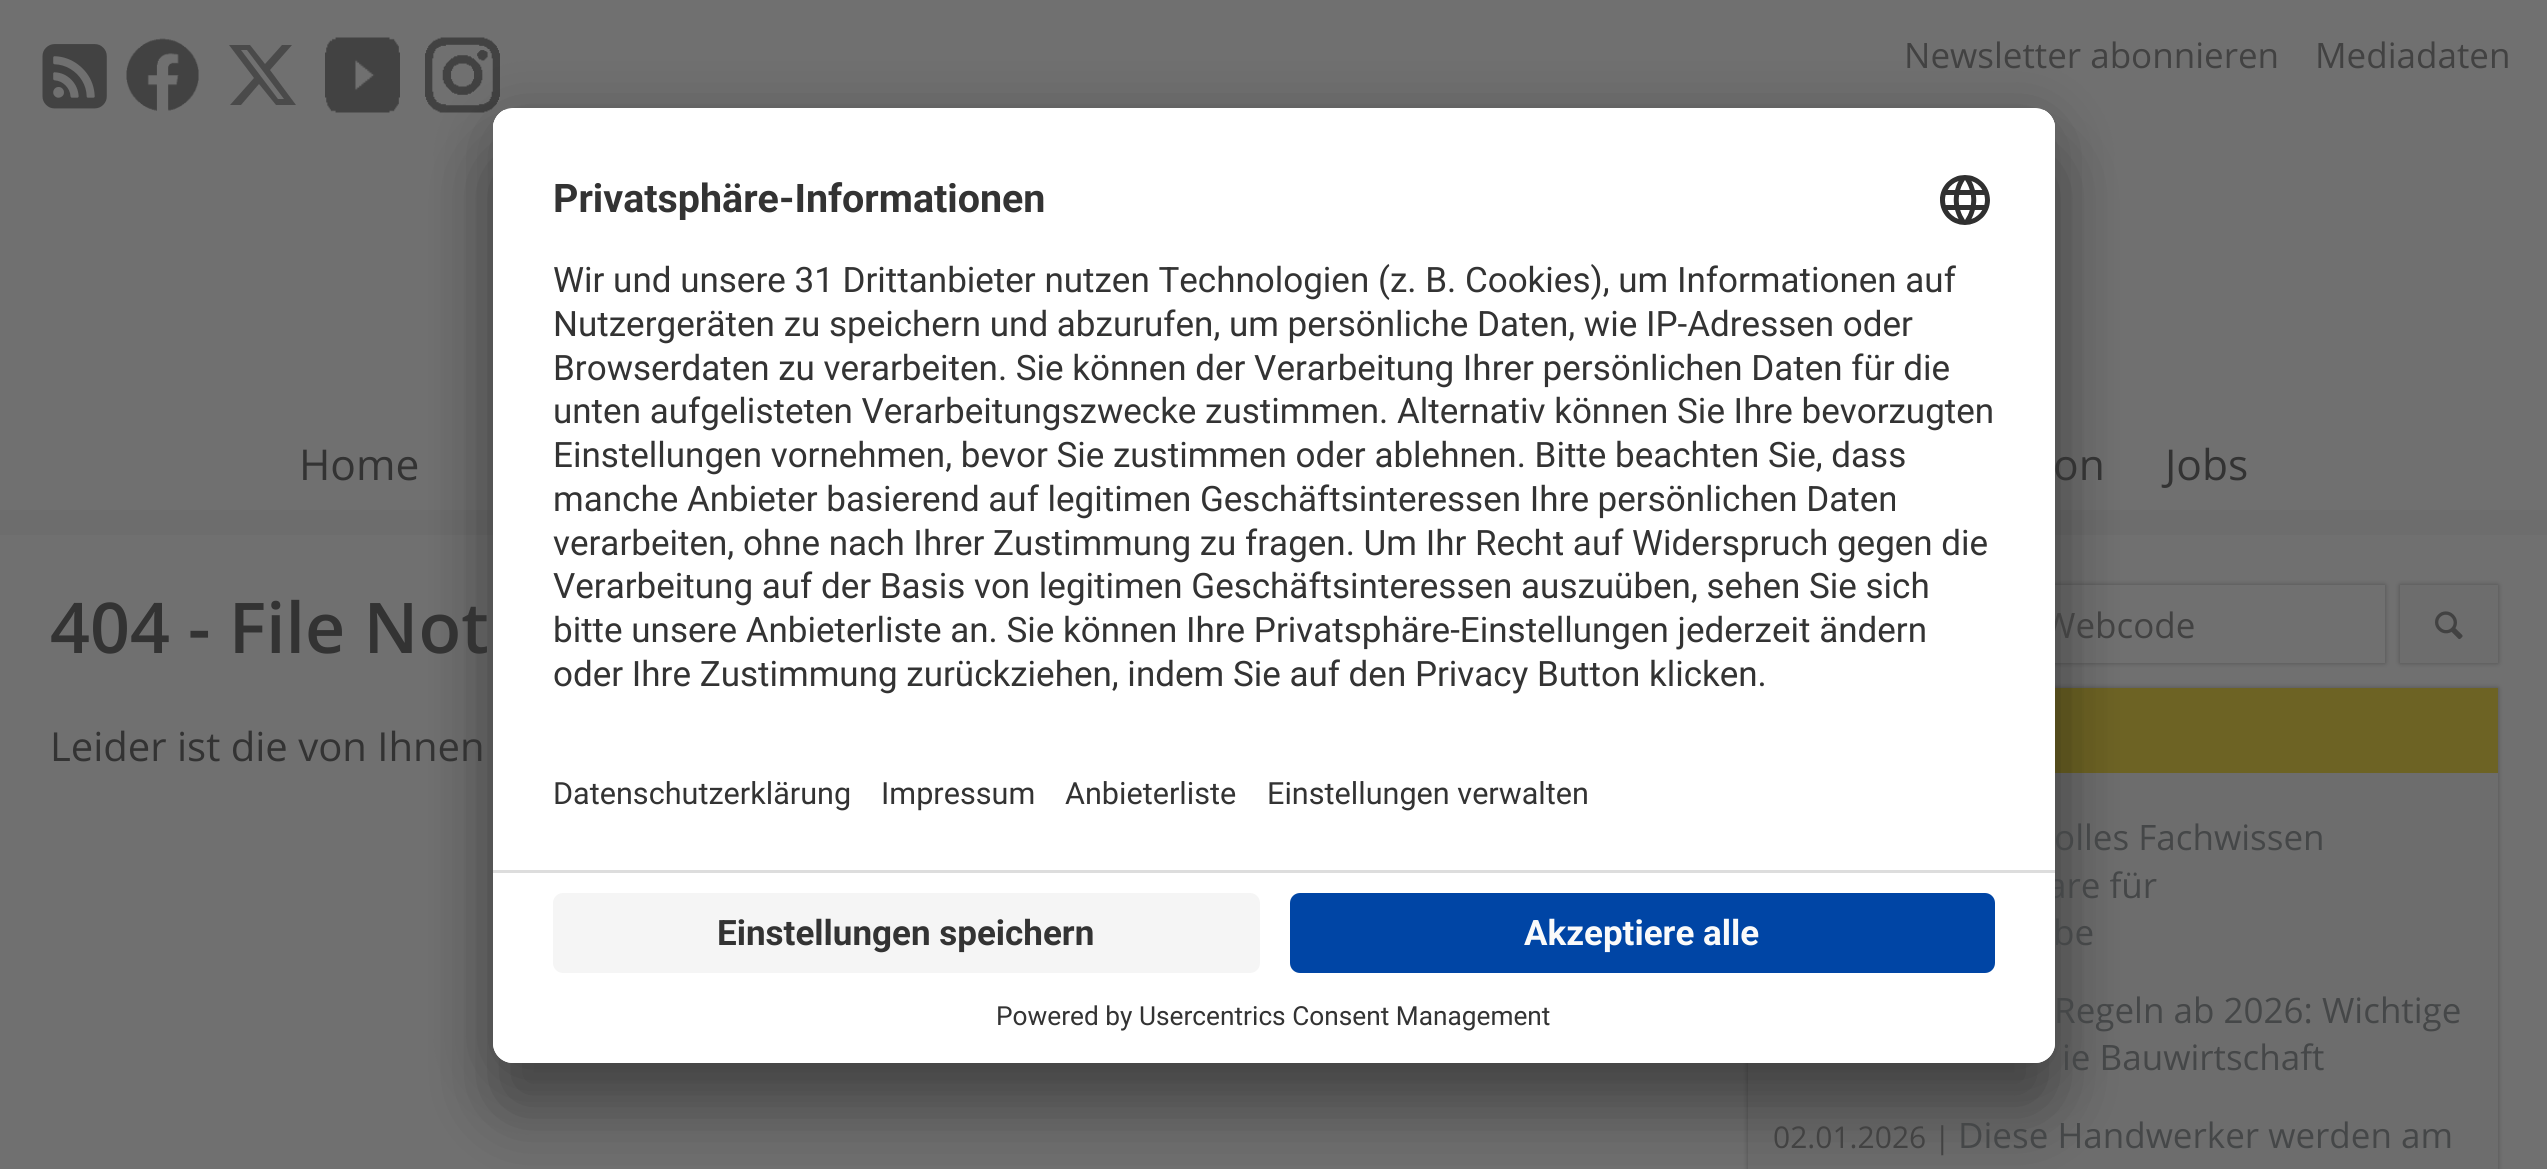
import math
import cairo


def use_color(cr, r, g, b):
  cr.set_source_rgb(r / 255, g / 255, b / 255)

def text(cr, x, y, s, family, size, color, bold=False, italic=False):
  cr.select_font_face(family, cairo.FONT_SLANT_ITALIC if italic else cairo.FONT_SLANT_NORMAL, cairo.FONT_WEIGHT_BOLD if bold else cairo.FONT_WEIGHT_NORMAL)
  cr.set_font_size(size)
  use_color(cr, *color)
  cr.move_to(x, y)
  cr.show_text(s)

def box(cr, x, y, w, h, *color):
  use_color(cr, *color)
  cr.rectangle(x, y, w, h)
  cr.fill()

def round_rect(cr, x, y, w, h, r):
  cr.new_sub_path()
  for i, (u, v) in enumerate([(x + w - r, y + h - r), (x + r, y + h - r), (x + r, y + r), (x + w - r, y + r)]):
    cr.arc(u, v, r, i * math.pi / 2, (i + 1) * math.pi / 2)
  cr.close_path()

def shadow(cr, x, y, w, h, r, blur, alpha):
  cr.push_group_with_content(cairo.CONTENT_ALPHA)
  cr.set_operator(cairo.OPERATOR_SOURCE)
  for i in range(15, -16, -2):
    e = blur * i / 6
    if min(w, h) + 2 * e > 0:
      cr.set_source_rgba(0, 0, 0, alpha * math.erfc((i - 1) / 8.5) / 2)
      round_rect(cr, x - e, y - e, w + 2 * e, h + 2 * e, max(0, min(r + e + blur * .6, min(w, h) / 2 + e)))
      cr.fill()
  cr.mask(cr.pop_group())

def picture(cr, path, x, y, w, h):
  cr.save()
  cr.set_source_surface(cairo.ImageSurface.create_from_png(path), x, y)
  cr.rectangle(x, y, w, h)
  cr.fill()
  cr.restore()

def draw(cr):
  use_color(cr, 109, 109, 109)
  cr.paint()
  box(cr, 0, 0, 2547, 510, 112, 112, 112)
  picture(cr, "img_01.png", 42, 44, 65, 65)
  picture(cr, "img_02.png", 126, 38, 73, 73)
  use_color(cr, 74, 74, 74)
  cr.new_path()
  cr.move_to(282, 45)
  cr.line_to(292, 45)
  cr.line_to(270, 70)
  cr.line_to(296, 105)
  cr.line_to(276, 105)
  cr.line_to(259, 84)
  cr.line_to(241, 105)
  cr.line_to(230, 105)
  cr.line_to(254, 78)
  cr.line_to(229, 45)
  cr.line_to(250, 45)
  cr.line_to(265, 64)
  cr.close_path()
  cr.move_to(278, 99)
  cr.line_to(284, 99)
  cr.line_to(247, 50)
  cr.line_to(241, 50)
  cr.close_path()
  cr.fill()
  picture(cr, "img_03.png", 325, 37, 75, 76)
  picture(cr, "img_04.png", 425, 37, 75, 76)
  box(cr, 0, 535, 2547, 634, 112, 112, 112)
  use_color(cr, 82, 82, 82)
  shadow(cr, 1748, 585, 637, 78, 0, 2.5, 1)
  box(cr, 2055, 585, 330, 78, 112, 112, 112)
  use_color(cr, 82, 82, 82)
  shadow(cr, 2400, 585, 98, 78, 0, 2.5, 1)
  box(cr, 2400, 585, 98, 78, 109, 109, 109)
  picture(cr, "img_05.png", 2435, 611, 28, 29)
  use_color(cr, 82, 82, 82)
  shadow(cr, 1748, 688, 750, 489, 0, 2.5, 1)
  box(cr, 1748, 773, 750, 396, 109, 109, 109)
  box(cr, 2055, 688, 443, 85, 109, 99, 36)
  use_color(cr, 0, 0, 0)
  shadow(cr, 493, 158, 1562, 955, 20, 35, 0.3)
  shadow(cr, 493, 120, 1562, 955, 20, 32.5, 0.22)
  text(cr, 1904, 68, "Newsletter abonnieren", "Open Sans", 35, (66, 66, 66))
  text(cr, 2315, 68, "Mediadaten", "Open Sans", 35, (66, 66, 66))
  text(cr, 299, 480, "Home", "Open Sans", 42.5, (51, 51, 51))
  text(cr, 2053, 480, "on", "Open Sans", 42.5, (51, 51, 51))
  text(cr, 2165, 480, "Jobs", "Open Sans", 42.5, (51, 51, 51))
  text(cr, 50, 653, "404 - File Not", "Open Sans SemiBold", 70, (51, 51, 51))
  text(cr, 50, 761, "Leider ist die von Ihnen", "Open Sans", 40, (51, 51, 51))
  text(cr, 2043, 638, "Webcode", "Open Sans", 35, (66, 66, 66))
  text(cr, 2054, 850, "olles Fachwissen", "Open Sans", 35, (69, 71, 72))
  text(cr, 2047, 898, "are für", "Open Sans", 35, (69, 71, 72))
  text(cr, 2053, 945, "be", "Open Sans", 35, (69, 71, 72))
  text(cr, 2054, 1023, "Regeln ab 2026: Wichtige", "Open Sans", 35, (69, 71, 72))
  text(cr, 2062, 1070, "ie Bauwirtschaft", "Open Sans", 35, (69, 71, 72))
  text(cr, 1773, 1148, "02.01.2026 |", "Open Sans", 30, (66, 66, 66))
  text(cr, 1958, 1148, "Diese Handwerker werden am", "Open Sans", 35, (69, 71, 72))
  use_color(cr, 255, 255, 255)
  round_rect(cr, 493, 108, 1562, 955, 20)
  cr.fill()
  cr.save()
  round_rect(cr, 493, 108, 1562, 955, 20)
  cr.clip()
  cr.new_path()
  cr.move_to(513, 108)
  cr.line_to(2035, 108)
  cr.curve_to(2046, 108, 2055, 117, 2055, 128)
  cr.line_to(2055, 870)
  cr.line_to(493, 870)
  cr.line_to(493, 128)
  cr.curve_to(493, 117, 502, 108, 513, 108)
  cr.close_path()
  cr.clip()
  box(cr, 493, 110, 1562, 760, 255, 255, 255)
  box(cr, 493, 110, 1562, 743, 255, 255, 255)
  cr.restore()
  text(cr, 553, 212, "Privatsphäre-Informationen", "Roboto", 39.4, (51, 51, 51), bold=True)
  picture(cr, "img_06.png", 1940, 175, 50, 50)
  text(cr, 553, 292, "Wir und unsere 31 Drittanbieter nutzen Technologien (z. B. Cookies), um Informationen auf", "Roboto", 35, (51, 51, 51))
  text(cr, 553, 336, "Nutzergeräten zu speichern und abzurufen, um persönliche Daten, wie IP-Adressen oder", "Roboto", 35, (51, 51, 51))
  text(cr, 553, 380, "Browserdaten zu verarbeiten. Sie können der Verarbeitung Ihrer persönlichen Daten für die", "Roboto", 35, (51, 51, 51))
  text(cr, 553, 423, "unten aufgelisteten Verarbeitungszwecke zustimmen. Alternativ können Sie Ihre bevorzugten", "Roboto", 35, (51, 51, 51))
  text(cr, 553, 467, "Einstellungen vornehmen, bevor Sie zustimmen oder ablehnen. Bitte beachten Sie, dass", "Roboto", 35, (51, 51, 51))
  text(cr, 553, 511, "manche Anbieter basierend auf legitimen Geschäftsinteressen Ihre persönlichen Daten", "Roboto", 35, (51, 51, 51))
  text(cr, 553, 555, "verarbeiten, ohne nach Ihrer Zustimmung zu fragen. Um Ihr Recht auf Widerspruch gegen die", "Roboto", 35, (51, 51, 51))
  text(cr, 553, 598, "Verarbeitung auf der Basis von legitimen Geschäftsinteressen auszuüben, sehen Sie sich", "Roboto", 35, (51, 51, 51))
  text(cr, 553, 642, "bitte unsere Anbieterliste an. Sie können Ihre Privatsphäre-Einstellungen jederzeit ändern", "Roboto", 35, (51, 51, 51))
  text(cr, 553, 686, "oder Ihre Zustimmung zurückziehen, indem Sie auf den Privacy Button klicken.", "Roboto", 35, (51, 51, 51))
  text(cr, 553, 804, "Datenschutzerklärung", "Roboto", 30.6, (51, 51, 51))
  text(cr, 881, 804, "Impressum", "Roboto", 30.6, (51, 51, 51))
  text(cr, 1065, 804, "Anbieterliste", "Roboto", 30.6, (51, 51, 51))
  text(cr, 1267, 804, "Einstellungen verwalten", "Roboto", 30.6, (51, 51, 51))
  use_color(cr, 255, 255, 255)
  cr.new_path()
  cr.move_to(493, 870)
  cr.line_to(2055, 870)
  cr.line_to(2055, 1043)
  cr.curve_to(2055, 1054, 2046, 1063, 2035, 1063)
  cr.line_to(513, 1063)
  cr.curve_to(502, 1063, 493, 1054, 493, 1043)
  cr.close_path()
  cr.fill()
  box(cr, 493, 870, 1562, 3, 221, 221, 221)
  use_color(cr, 245, 245, 245)
  round_rect(cr, 553, 893, 707, 80, 10)
  cr.fill()
  text(cr, 717, 945, "Einstellungen speichern", "Roboto", 35, (51, 51, 51), bold=True)
  use_color(cr, 0, 69, 165)
  round_rect(cr, 1290, 893, 705, 80, 10)
  cr.fill()
  text(cr, 1524, 945, "Akzeptiere alle", "Roboto", 35, (250, 250, 250), bold=True)
  text(cr, 996, 1025, "Powered by Usercentrics Consent Management", "Roboto", 26.25, (51, 51, 51))


surface = cairo.ImageSurface(cairo.FORMAT_RGB24, 2547, 1169)
cr = cairo.Context(surface)
options = cairo.FontOptions()
options.set_hint_metrics(cairo.HINT_METRICS_OFF)
options.set_hint_style(cairo.HINT_STYLE_NONE)
cr.set_font_options(options)
cr.set_miter_limit(4)
draw(cr)
surface.write_to_png("out.png")
